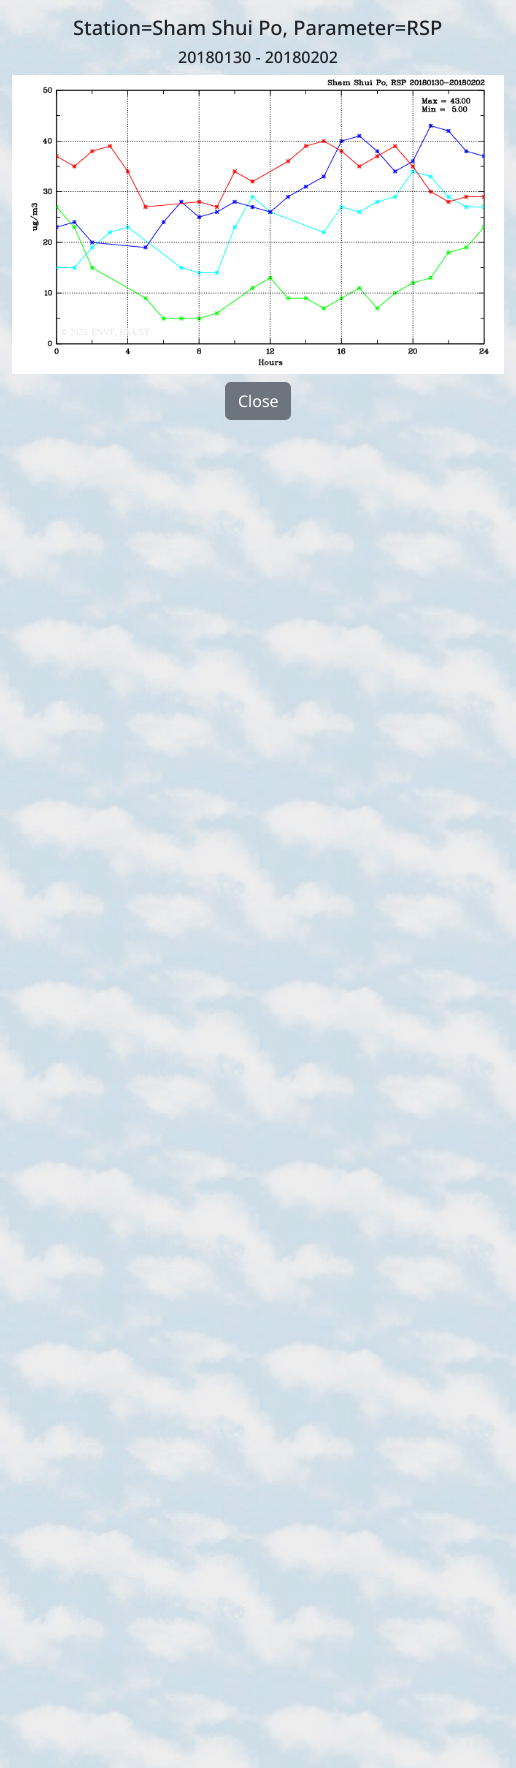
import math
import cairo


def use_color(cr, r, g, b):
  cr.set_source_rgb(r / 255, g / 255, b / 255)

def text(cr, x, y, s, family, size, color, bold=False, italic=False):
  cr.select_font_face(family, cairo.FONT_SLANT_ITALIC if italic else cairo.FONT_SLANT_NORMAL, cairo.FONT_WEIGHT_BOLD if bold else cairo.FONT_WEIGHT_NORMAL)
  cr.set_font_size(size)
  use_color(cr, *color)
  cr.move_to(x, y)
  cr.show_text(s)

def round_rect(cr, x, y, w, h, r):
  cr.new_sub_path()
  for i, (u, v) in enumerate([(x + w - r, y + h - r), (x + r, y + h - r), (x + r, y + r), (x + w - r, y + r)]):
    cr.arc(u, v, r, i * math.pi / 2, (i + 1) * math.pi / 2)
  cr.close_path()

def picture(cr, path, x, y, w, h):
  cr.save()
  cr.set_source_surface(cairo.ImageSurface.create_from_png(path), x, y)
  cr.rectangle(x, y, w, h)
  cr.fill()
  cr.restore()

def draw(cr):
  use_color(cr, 255, 255, 255)
  cr.paint()
  picture(cr, "img_01.png", 0, 0, 516, 1768)
  picture(cr, "img_02.png", 12, 75, 492, 299)
  use_color(cr, 108, 117, 125)
  round_rect(cr, 225.5, 382.5, 65, 37, 5.5)
  cr.fill_preserve()
  cr.set_line_width(1)
  cr.stroke()
  text(cr, 73, 35, "Station=Sham Shui Po, Parameter=RSP", "Noto Sans Medium", 20, (33, 37, 41))
  text(cr, 178, 63, "20180130 - 20180202", "Noto Sans Medium", 16, (33, 37, 41))
  text(cr, 238, 407, "Close", "Noto Sans", 16, (255, 255, 255))


surface = cairo.ImageSurface(cairo.FORMAT_RGB24, 516, 1768)
cr = cairo.Context(surface)
options = cairo.FontOptions()
options.set_hint_metrics(cairo.HINT_METRICS_OFF)
options.set_hint_style(cairo.HINT_STYLE_NONE)
cr.set_font_options(options)
cr.set_miter_limit(4)
draw(cr)
surface.write_to_png("out.png")
